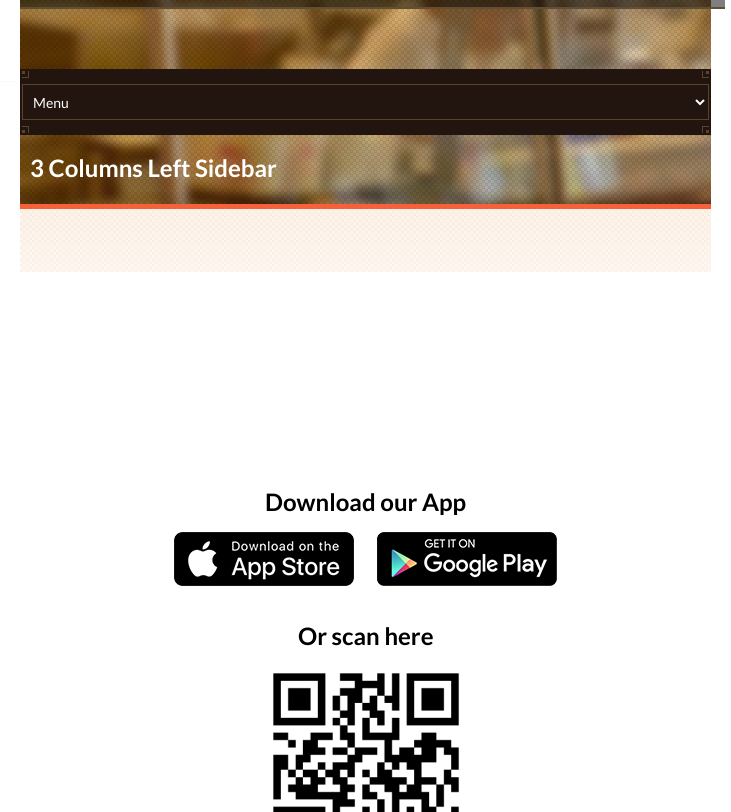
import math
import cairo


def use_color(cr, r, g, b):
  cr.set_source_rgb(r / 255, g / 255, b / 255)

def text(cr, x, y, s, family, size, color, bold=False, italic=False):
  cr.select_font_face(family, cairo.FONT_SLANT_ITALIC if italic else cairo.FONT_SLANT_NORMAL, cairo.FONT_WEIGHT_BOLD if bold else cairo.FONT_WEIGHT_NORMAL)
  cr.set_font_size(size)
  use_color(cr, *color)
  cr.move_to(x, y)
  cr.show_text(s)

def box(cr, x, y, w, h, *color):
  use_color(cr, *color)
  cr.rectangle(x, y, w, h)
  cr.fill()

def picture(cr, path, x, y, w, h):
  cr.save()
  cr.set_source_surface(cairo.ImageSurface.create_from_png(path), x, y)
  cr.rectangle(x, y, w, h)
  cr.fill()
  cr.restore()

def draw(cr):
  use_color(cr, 255, 255, 255)
  cr.paint()
  box(cr, 20, 204, 691, 5, 247, 97, 57)
  picture(cr, "img_01.png", 20, 0, 691, 204)
  picture(cr, "img_09.png", 20, 192, 691, 12)
  picture(cr, "img_02.png", 20, 0, 691, 204)
  picture(cr, "img_03.png", 20, 0, 691, 204)
  cr.set_source_rgba(0, 0, 0, 0.5)
  cr.rectangle(20, 0, 705, 7)
  cr.fill()
  box(cr, 20, 7, 705, 2, 96, 79, 53)
  picture(cr, "img_04.png", 0, 81, 16, 1)
  box(cr, 20, 69, 691, 66, 34, 20, 14)
  picture(cr, "img_05.png", 22, 71, 7, 7)
  picture(cr, "img_06.png", 702, 71, 7, 7)
  cr.rectangle(22.5, 84.5, 686, 35)
  use_color(cr, 91, 68, 39)
  cr.set_line_width(1)
  cr.stroke()
  cr.new_path()
  cr.move_to(696, 100)
  cr.line_to(700, 104)
  cr.line_to(704, 100)
  use_color(cr, 255, 255, 255)
  cr.set_line_width(2)
  cr.stroke()
  picture(cr, "img_07.png", 22, 126, 7, 7)
  picture(cr, "img_08.png", 702, 126, 7, 7)
  picture(cr, "img_10.png", 20, 209, 691, 63)
  picture(cr, "img_11.png", 174, 532, 180, 54)
  picture(cr, "img_12.png", 377, 532, 180, 54)
  picture(cr, "img_13.png", 273, 673, 187, 139)
  text(cr, 33, 108, "Menu", "Lato", 14, (255, 255, 255))
  text(cr, 30, 177, "3 Columns Left Sidebar", "Lato", 24, (255, 255, 255), bold=True)
  text(cr, 265, 511, "Download our App", "Lato", 24, (0, 0, 0), bold=True)
  text(cr, 298, 645, "Or scan here", "Lato", 24, (0, 0, 0), bold=True)


surface = cairo.ImageSurface(cairo.FORMAT_RGB24, 731, 812)
cr = cairo.Context(surface)
options = cairo.FontOptions()
options.set_hint_metrics(cairo.HINT_METRICS_OFF)
options.set_hint_style(cairo.HINT_STYLE_NONE)
cr.set_font_options(options)
cr.set_miter_limit(4)
draw(cr)
surface.write_to_png("out.png")
